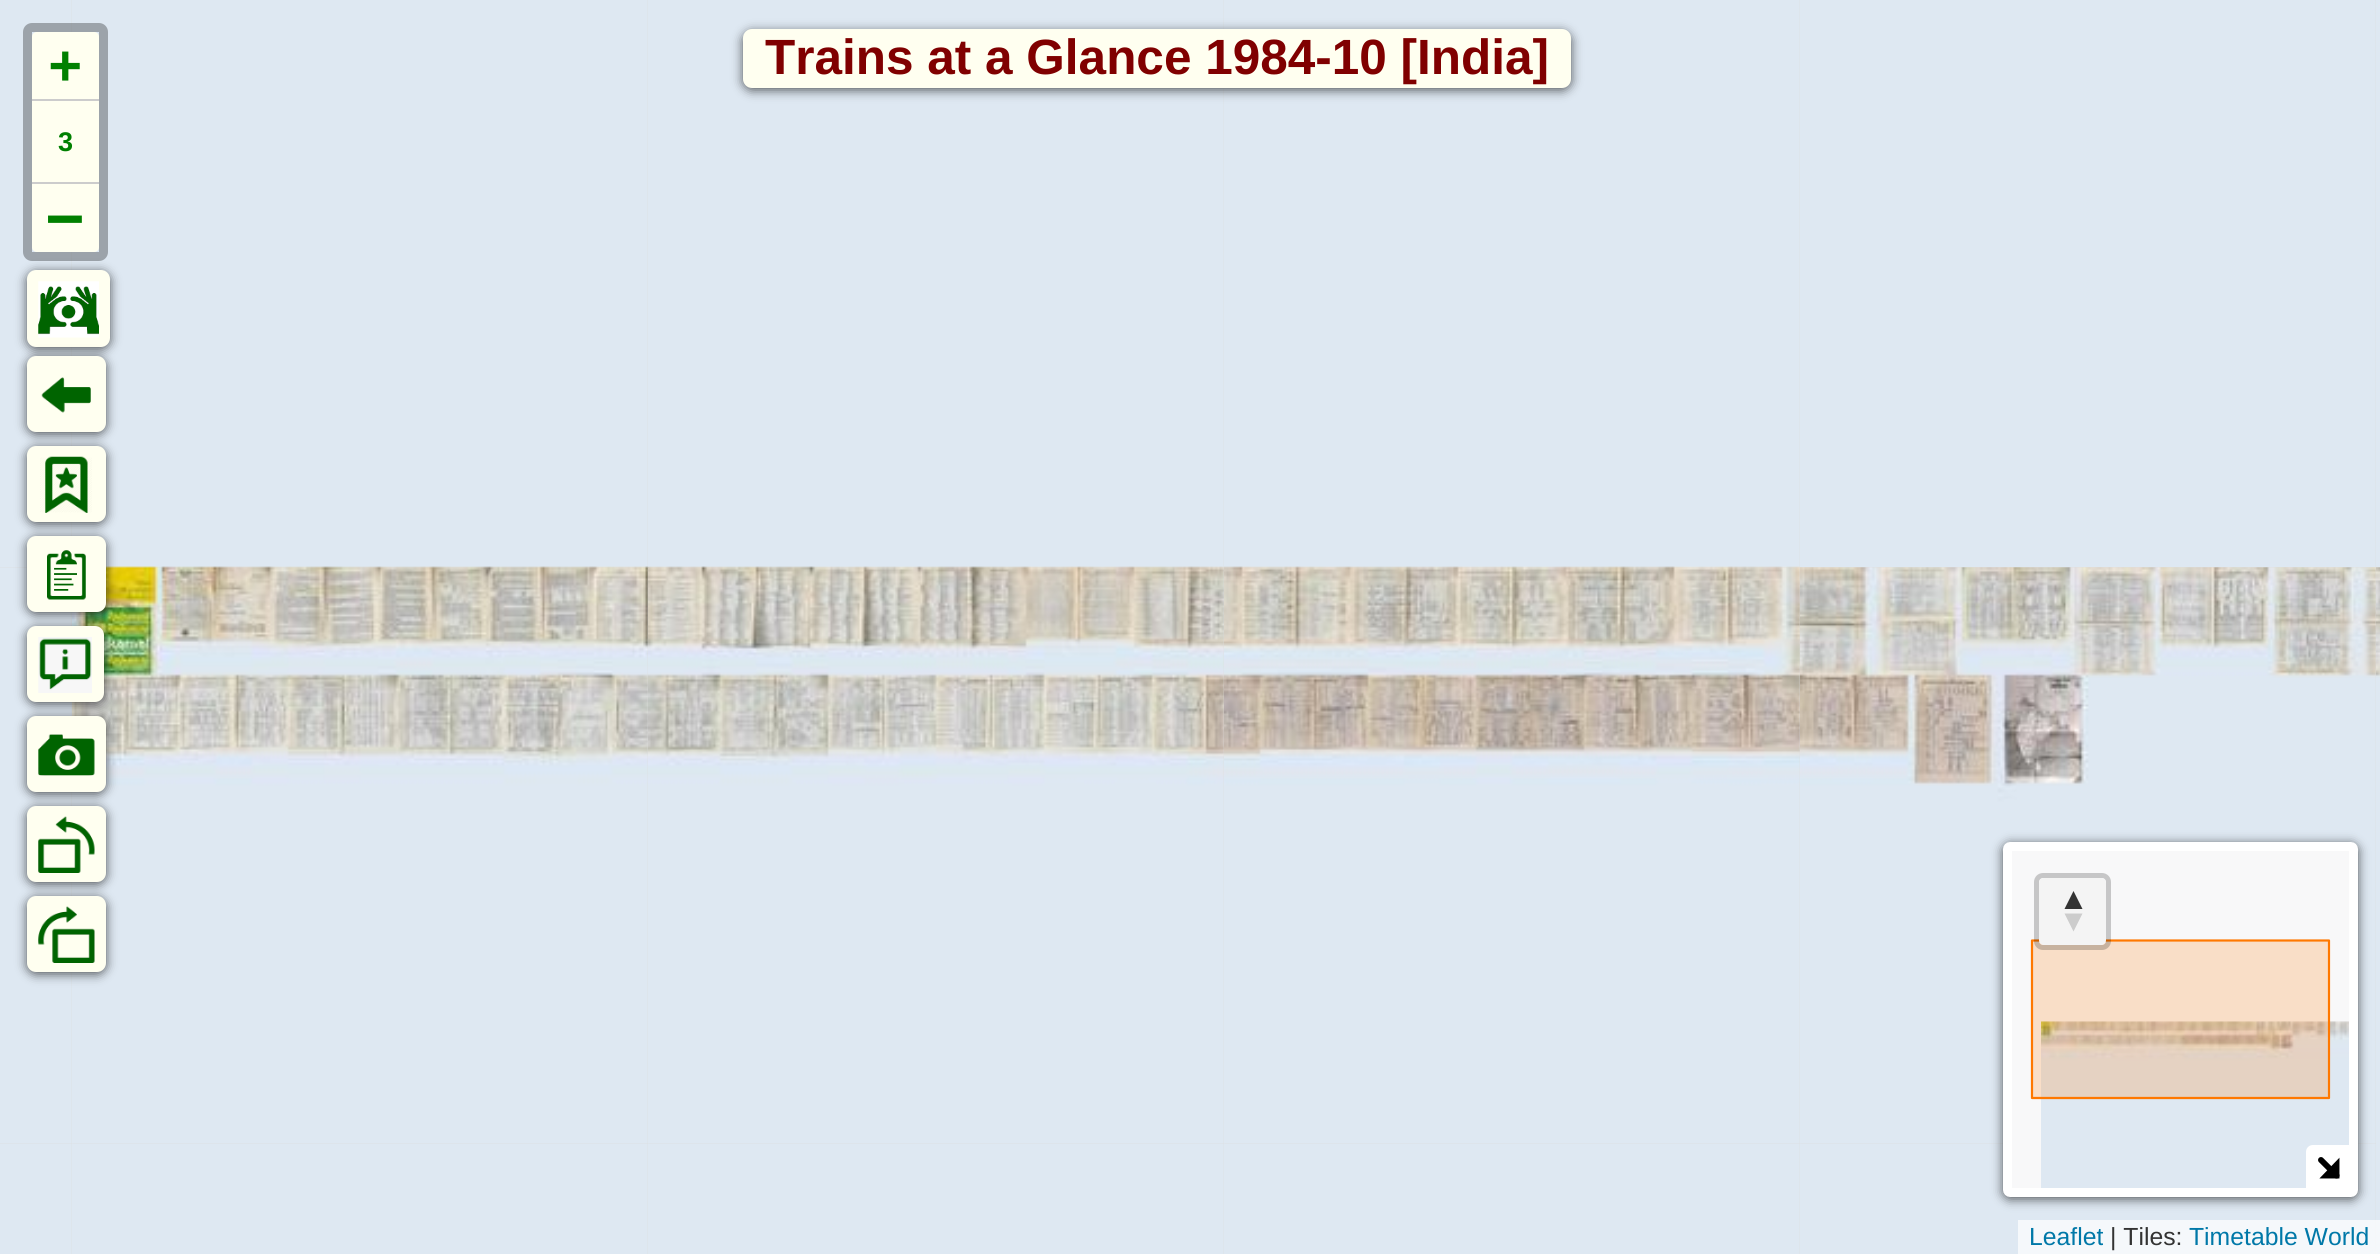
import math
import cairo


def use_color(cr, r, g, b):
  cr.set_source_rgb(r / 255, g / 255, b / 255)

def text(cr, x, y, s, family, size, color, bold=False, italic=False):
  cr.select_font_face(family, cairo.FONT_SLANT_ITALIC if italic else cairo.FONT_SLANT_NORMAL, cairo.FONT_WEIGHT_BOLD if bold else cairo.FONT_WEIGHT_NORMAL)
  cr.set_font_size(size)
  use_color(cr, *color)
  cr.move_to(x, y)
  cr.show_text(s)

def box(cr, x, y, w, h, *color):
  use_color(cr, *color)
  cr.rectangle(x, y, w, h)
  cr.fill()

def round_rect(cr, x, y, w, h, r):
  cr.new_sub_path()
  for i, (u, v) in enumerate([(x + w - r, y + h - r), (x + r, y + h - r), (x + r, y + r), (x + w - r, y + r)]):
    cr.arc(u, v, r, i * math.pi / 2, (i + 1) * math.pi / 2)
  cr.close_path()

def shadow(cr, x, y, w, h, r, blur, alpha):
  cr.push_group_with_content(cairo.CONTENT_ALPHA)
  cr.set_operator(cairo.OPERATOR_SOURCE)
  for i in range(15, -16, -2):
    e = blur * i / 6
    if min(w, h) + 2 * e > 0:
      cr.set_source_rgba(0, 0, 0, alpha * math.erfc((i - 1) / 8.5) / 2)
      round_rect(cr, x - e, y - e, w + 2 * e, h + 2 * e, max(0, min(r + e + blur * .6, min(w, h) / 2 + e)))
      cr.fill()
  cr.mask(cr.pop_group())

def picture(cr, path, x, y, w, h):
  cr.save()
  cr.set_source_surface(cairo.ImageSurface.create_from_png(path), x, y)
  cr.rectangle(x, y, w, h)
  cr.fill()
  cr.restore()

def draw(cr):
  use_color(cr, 221, 221, 221)
  cr.paint()
  picture(cr, "img_02.png", 72, 0, 576, 567)
  picture(cr, "img_05.png", 72, 566, 577, 577)
  picture(cr, "img_02.png", 648, 0, 576, 567)
  picture(cr, "img_06.png", 648, 566, 577, 577)
  picture(cr, "img_02.png", 1224, 0, 576, 567)
  use_color(cr, 0, 0, 0)
  shadow(cr, 743, 32, 828, 58, 9, 5.5, 0.65)
  use_color(cr, 255, 255, 240)
  round_rect(cr, 743, 29, 828, 59, 9)
  cr.fill()
  picture(cr, "img_01.png", 0, 0, 72, 567)
  picture(cr, "img_07.png", 1224, 566, 577, 577)
  picture(cr, "img_08.png", 1800, 566, 577, 577)
  picture(cr, "img_03.png", 1800, 0, 576, 567)
  box(cr, 2376, 0, 4, 567, 222, 232, 242)
  picture(cr, "img_04.png", 0, 567, 72, 576)
  picture(cr, "img_09.png", 2376, 567, 4, 576)
  picture(cr, "img_10.png", 0, 1143, 73, 111)
  picture(cr, "img_11.png", 72, 1143, 577, 111)
  picture(cr, "img_11.png", 648, 1143, 577, 111)
  picture(cr, "img_11.png", 1224, 1143, 577, 111)
  picture(cr, "img_12.png", 1800, 1143, 576, 111)
  box(cr, 2376, 1143, 4, 111, 222, 232, 242)
  round_rect(cr, 27.5, 27.5, 76, 229, 4.5)
  cr.set_source_rgba(0, 0, 0, 0.3)
  cr.set_line_width(9)
  cr.stroke()
  use_color(cr, 255, 255, 240)
  cr.new_path()
  cr.move_to(37, 32)
  cr.line_to(94, 32)
  cr.curve_to(97, 32, 99, 34, 99, 37)
  cr.line_to(99, 101)
  cr.line_to(32, 101)
  cr.line_to(32, 37)
  cr.curve_to(32, 34, 34, 32, 37, 32)
  cr.close_path()
  cr.fill()
  box(cr, 32, 99, 67, 2, 204, 204, 204)
  box(cr, 32, 101, 67, 84, 255, 255, 240)
  box(cr, 32, 182, 67, 2, 204, 204, 204)
  use_color(cr, 255, 255, 240)
  cr.new_path()
  cr.move_to(32, 185)
  cr.line_to(99, 185)
  cr.line_to(99, 247)
  cr.curve_to(99, 250, 97, 252, 94, 252)
  cr.line_to(37, 252)
  cr.curve_to(34, 252, 32, 250, 32, 247)
  cr.close_path()
  cr.fill()
  use_color(cr, 0, 0, 0)
  shadow(cr, 2003, 844, 355, 355, 7, 5.5, 0.65)
  use_color(cr, 248, 248, 249)
  round_rect(cr, 2007.5, 846.5, 346, 346, 2.5)
  cr.fill_preserve()
  use_color(cr, 255, 255, 255)
  cr.stroke()
  picture(cr, "img_13.png", 2041, 1021, 308, 167)
  cr.set_source_rgba(1, 0.471, 0, 0.2)
  cr.rectangle(2033, 941, 295, 156)
  cr.fill()
  cr.new_path()
  cr.move_to(2032, 1098)
  cr.line_to(2032, 940.5)
  cr.line_to(2329, 940.5)
  cr.line_to(2329, 1098)
  cr.close_path()
  use_color(cr, 255, 120, 0)
  cr.set_line_width(2.2)
  cr.set_line_cap(cairo.LINE_CAP_ROUND)
  cr.set_line_join(cairo.LINE_JOIN_ROUND)
  cr.stroke()
  round_rect(cr, 2036.5, 875.5, 72, 72, 6.5)
  cr.set_source_rgba(0, 0, 0, 0.2)
  cr.set_line_width(5)
  cr.set_line_cap(cairo.LINE_CAP_BUTT)
  cr.set_line_join(cairo.LINE_JOIN_MITER)
  cr.stroke()
  use_color(cr, 244, 244, 244)
  round_rect(cr, 2039, 878, 67, 67, 5)
  cr.fill()
  use_color(cr, 51, 51, 51)
  cr.new_path()
  cr.move_to(2064.5, 909)
  cr.line_to(2073.5, 891)
  cr.line_to(2082.5, 909)
  cr.close_path()
  cr.fill()
  use_color(cr, 204, 204, 204)
  cr.new_path()
  cr.move_to(2064.5, 913.5)
  cr.line_to(2073.5, 931.5)
  cr.line_to(2082.5, 913.5)
  cr.close_path()
  cr.fill()
  use_color(cr, 255, 255, 255)
  cr.new_path()
  cr.move_to(2313, 1145)
  cr.line_to(2349, 1145)
  cr.line_to(2349, 1188)
  cr.line_to(2306, 1188)
  cr.line_to(2306, 1152)
  cr.curve_to(2306, 1148, 2309, 1145, 2313, 1145)
  cr.close_path()
  cr.fill()
  use_color(cr, 0, 0, 0)
  cr.new_path()
  cr.move_to(2337.5, 1176.5)
  cr.line_to(2337.5, 1162.5)
  cr.line_to(2324, 1176.5)
  cr.close_path()
  cr.fill_preserve()
  cr.set_line_width(3.9)
  cr.stroke()
  cr.new_path()
  cr.move_to(2336.5, 1175.5)
  cr.line_to(2321, 1160)
  cr.set_line_width(5.9)
  cr.set_line_cap(cairo.LINE_CAP_ROUND)
  cr.stroke()
  cr.set_source_rgba(1, 1, 1, 0.7)
  cr.rectangle(2018, 1220, 362, 34)
  cr.fill()
  use_color(cr, 0, 0, 0)
  shadow(cr, 27, 272, 83, 77, 9, 5.5, 0.65)
  use_color(cr, 255, 255, 240)
  round_rect(cr, 27, 270, 83, 77, 9)
  cr.fill()
  picture(cr, "img_14.png", 38, 281, 61, 57)
  use_color(cr, 0, 0, 0)
  shadow(cr, 27, 358, 79, 76, 9, 5.5, 0.65)
  use_color(cr, 255, 255, 240)
  round_rect(cr, 27, 356, 79, 76, 9)
  cr.fill()
  picture(cr, "img_15.png", 41, 377, 50, 36)
  use_color(cr, 0, 0, 0)
  shadow(cr, 27, 448, 79, 76, 9, 5.5, 0.65)
  use_color(cr, 255, 255, 240)
  round_rect(cr, 27, 446, 79, 76, 9)
  cr.fill()
  picture(cr, "img_16.png", 40, 456, 52, 57)
  use_color(cr, 0, 0, 0)
  shadow(cr, 27, 538, 79, 76, 9, 5.5, 0.65)
  use_color(cr, 255, 255, 240)
  round_rect(cr, 27, 536, 79, 76, 9)
  cr.fill()
  picture(cr, "img_17.png", 47, 550, 39, 50)
  use_color(cr, 0, 0, 0)
  shadow(cr, 27, 628, 77, 76, 9, 5.5, 0.65)
  use_color(cr, 255, 255, 240)
  round_rect(cr, 27, 626, 77, 76, 9)
  cr.fill()
  picture(cr, "img_18.png", 38, 637, 54, 56)
  use_color(cr, 0, 0, 0)
  shadow(cr, 27, 718, 79, 76, 9, 5.5, 0.65)
  use_color(cr, 255, 255, 240)
  round_rect(cr, 27, 716, 79, 76, 9)
  cr.fill()
  picture(cr, "img_19.png", 38, 734, 57, 42)
  use_color(cr, 0, 0, 0)
  shadow(cr, 27, 808, 79, 76, 9, 5.5, 0.65)
  use_color(cr, 255, 255, 240)
  round_rect(cr, 27, 806, 79, 76, 9)
  cr.fill()
  picture(cr, "img_20.png", 38, 816, 57, 57)
  use_color(cr, 0, 0, 0)
  shadow(cr, 27, 898, 79, 76, 9, 5.5, 0.65)
  use_color(cr, 255, 255, 240)
  round_rect(cr, 27, 896, 79, 76, 9)
  cr.fill()
  picture(cr, "img_21.png", 38, 906, 57, 57)
  text(cr, 765, 74, "Trains at a Glance 1984-10 [India]", "Liberation Sans", 49.5, (128, 0, 0), bold=True)
  text(cr, 49, 83, "+", "DejaVu Sans Mono", 54, (0, 128, 0), bold=True)
  text(cr, 58, 151, "3", "Liberation Sans", 27, (0, 128, 0), bold=True)
  text(cr, 46, 239, "−", "DejaVu Sans Mono", 63, (0, 128, 0), bold=True)
  text(cr, 2029, 1245, "Leaflet", "Liberation Sans", 24.75, (0, 120, 168))
  text(cr, 2110, 1245, "| Tiles:", "Liberation Sans", 24.75, (51, 51, 51))
  text(cr, 2189, 1245, "Timetable World", "Liberation Sans", 24.75, (0, 120, 168))


surface = cairo.ImageSurface(cairo.FORMAT_RGB24, 2380, 1254)
cr = cairo.Context(surface)
options = cairo.FontOptions()
options.set_hint_metrics(cairo.HINT_METRICS_OFF)
options.set_hint_style(cairo.HINT_STYLE_NONE)
cr.set_font_options(options)
cr.set_miter_limit(4)
draw(cr)
surface.write_to_png("out.png")
